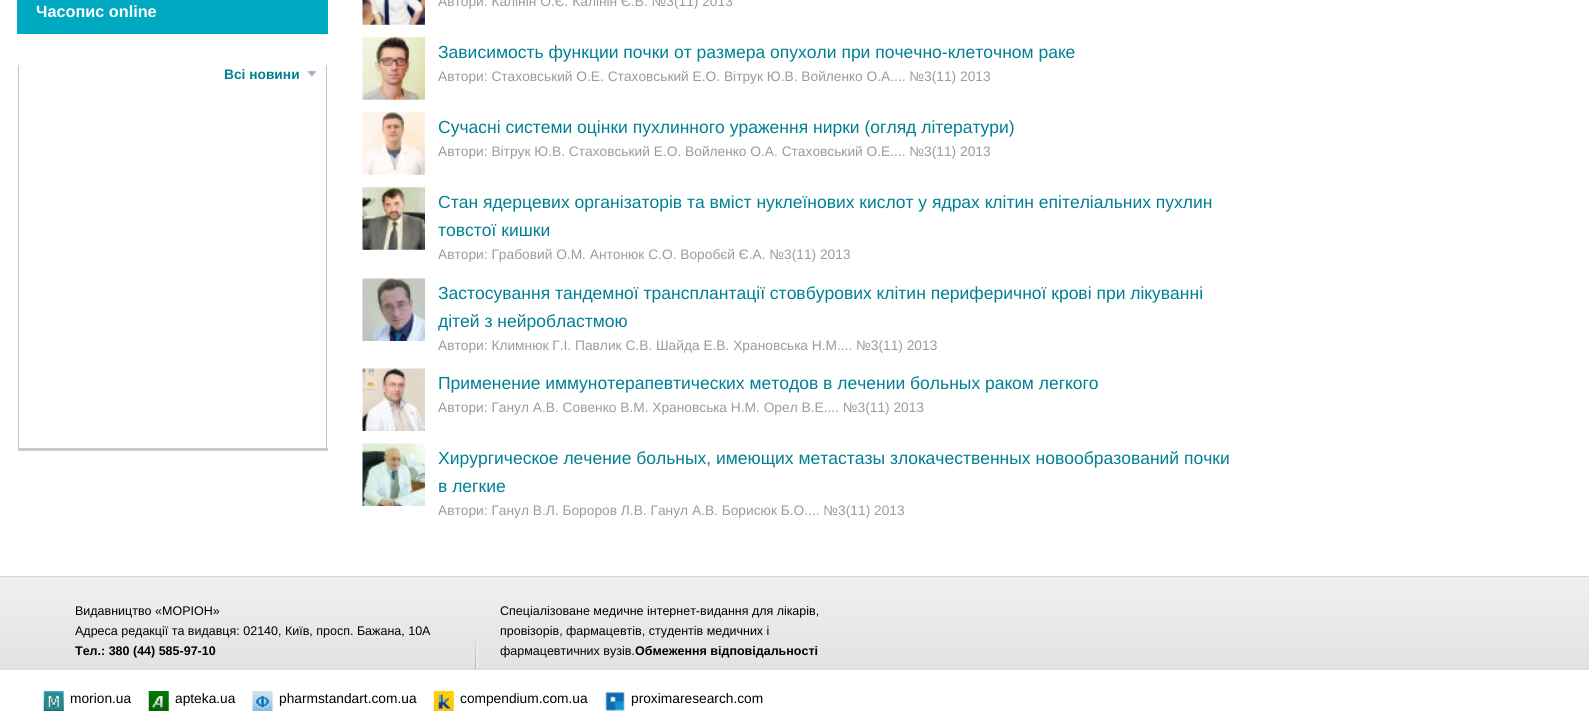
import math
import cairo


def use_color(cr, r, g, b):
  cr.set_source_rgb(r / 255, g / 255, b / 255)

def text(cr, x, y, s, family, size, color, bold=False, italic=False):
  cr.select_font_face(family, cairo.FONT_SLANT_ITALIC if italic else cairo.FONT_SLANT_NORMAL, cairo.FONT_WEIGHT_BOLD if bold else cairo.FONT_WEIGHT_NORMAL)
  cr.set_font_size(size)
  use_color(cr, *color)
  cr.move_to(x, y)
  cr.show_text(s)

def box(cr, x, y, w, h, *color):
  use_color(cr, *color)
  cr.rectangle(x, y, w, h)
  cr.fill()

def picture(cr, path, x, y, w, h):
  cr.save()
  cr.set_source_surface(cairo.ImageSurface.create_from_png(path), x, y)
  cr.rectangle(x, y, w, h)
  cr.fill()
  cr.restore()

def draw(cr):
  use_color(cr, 255, 255, 255)
  cr.paint()
  box(cr, 17, 0, 311, 34, 0, 169, 194)
  box(cr, 326, 65, 1, 385, 200, 200, 200)
  box(cr, 18, 448, 310, 3, 200, 200, 200)
  box(cr, 18, 65, 1, 385, 200, 200, 200)
  picture(cr, "img_01.png", 307, 70, 10, 9)
  picture(cr, "img_02.png", 362, 0, 63, 25)
  picture(cr, "img_03.png", 362, 37, 63, 63)
  picture(cr, "img_04.png", 362, 112, 63, 63)
  picture(cr, "img_05.png", 362, 187, 63, 63)
  picture(cr, "img_06.png", 362, 278, 63, 63)
  picture(cr, "img_07.png", 362, 368, 63, 63)
  picture(cr, "img_08.png", 362, 443, 63, 63)
  picture(cr, "img_09.png", 0, 576, 1589, 94)
  picture(cr, "img_10.png", 475, 636, 3, 34)
  picture(cr, "img_11.png", 43, 691, 21, 20)
  picture(cr, "img_12.png", 148, 691, 21, 20)
  picture(cr, "img_13.png", 252, 691, 21, 20)
  picture(cr, "img_14.png", 433, 691, 21, 20)
  picture(cr, "img_15.png", 605, 692, 20, 19)
  text(cr, 36, 17, "Часопис online", "Liberation Sans", 16.25, (255, 255, 255), bold=True)
  text(cr, 224, 79, "Всі новини", "Liberation Sans", 13.75, (0, 128, 147), bold=True)
  text(cr, 438, 6, "Автори: Калінін О.Є. Калінін Є.В. №3(11) 2013", "Liberation Sans", 13.75, (155, 155, 155))
  text(cr, 438, 58, "Зависимость функции почки от размера опухоли при почечно-клеточном раке", "Liberation Sans", 17.5, (0, 128, 147))
  text(cr, 438, 81, "Автори: Стаховський О.Е. Стаховський Е.О. Вітрук Ю.В. Войленко О.А.... №3(11) 2013", "Liberation Sans", 13.75, (155, 155, 155))
  text(cr, 438, 133, "Сучасні системи оцінки пухлинного ураження нирки (огляд літератури)", "Liberation Sans", 17.5, (0, 128, 147))
  text(cr, 438, 156, "Автори: Вітрук Ю.В. Стаховський Е.О. Войленко О.А. Стаховський О.Е.... №3(11) 2013", "Liberation Sans", 13.75, (155, 155, 155))
  text(cr, 438, 208, "Стан ядерцевих організаторів та вміст нуклеїнових кислот у ядрах клітин епітеліальних пухлин", "Liberation Sans", 17.5, (0, 128, 147))
  text(cr, 438, 236, "товстої кишки", "Liberation Sans", 17.5, (0, 128, 147))
  text(cr, 438, 259, "Автори: Грабовий О.М. Антонюк С.О. Воробєй Є.А. №3(11) 2013", "Liberation Sans", 13.75, (155, 155, 155))
  text(cr, 438, 299, "Застосування тандемної трансплантації стовбурових клітин периферичної крові при лікуванні", "Liberation Sans", 17.5, (0, 128, 147))
  text(cr, 438, 327, "дітей з нейробластмою", "Liberation Sans", 17.5, (0, 128, 147))
  text(cr, 438, 350, "Автори: Климнюк Г.І. Павлик С.В. Шайда Е.В. Храновська Н.М.... №3(11) 2013", "Liberation Sans", 13.75, (155, 155, 155))
  text(cr, 438, 389, "Применение иммунотерапевтических методов в лечении больных раком легкого", "Liberation Sans", 17.5, (0, 128, 147))
  text(cr, 438, 412, "Автори: Ганул А.В. Совенко В.М. Храновська Н.М. Орел В.Е.... №3(11) 2013", "Liberation Sans", 13.75, (155, 155, 155))
  text(cr, 438, 464, "Хирургическое лечение больных, имеющих метастазы злокачественных новообразований почки", "Liberation Sans", 17.5, (0, 128, 147))
  text(cr, 438, 492, "в легкие", "Liberation Sans", 17.5, (0, 128, 147))
  text(cr, 438, 515, "Автори: Ганул В.Л. Бороров Л.В. Ганул А.В. Борисюк Б.О.... №3(11) 2013", "Liberation Sans", 13.75, (155, 155, 155))
  text(cr, 75, 615, "Видавництво «МОРІОН»", "Liberation Sans", 12.5, (0, 0, 0))
  text(cr, 75, 635, "Адреса редакції та видавця: 02140, Київ, просп. Бажана, 10А", "Liberation Sans", 12.5, (0, 0, 0))
  text(cr, 75, 655, "Тел.: 380 (44) 585-97-10", "Liberation Sans", 12.5, (0, 0, 0), bold=True)
  text(cr, 500, 615, "Спеціалізоване медичне інтернет-видання для лікарів,", "Liberation Sans", 12.5, (0, 0, 0))
  text(cr, 500, 635, "провізорів, фармацевтів, студентів медичних і", "Liberation Sans", 12.5, (0, 0, 0))
  text(cr, 500, 655, "фармацевтичних вузів.", "Liberation Sans", 12.5, (0, 0, 0))
  text(cr, 635, 655, "Обмеження відповідальності", "Liberation Sans", 12.5, (0, 0, 0), bold=True)
  text(cr, 70, 703, "morion.ua", "Liberation Sans", 13.75, (0, 0, 0))
  text(cr, 175, 703, "apteka.ua", "Liberation Sans", 13.75, (0, 0, 0))
  text(cr, 279, 703, "pharmstandart.com.ua", "Liberation Sans", 13.75, (0, 0, 0))
  text(cr, 460, 703, "compendium.com.ua", "Liberation Sans", 13.75, (0, 0, 0))
  text(cr, 631, 703, "proximaresearch.com", "Liberation Sans", 13.75, (0, 0, 0))


surface = cairo.ImageSurface(cairo.FORMAT_RGB24, 1589, 722)
cr = cairo.Context(surface)
options = cairo.FontOptions()
options.set_hint_metrics(cairo.HINT_METRICS_OFF)
options.set_hint_style(cairo.HINT_STYLE_NONE)
cr.set_font_options(options)
cr.set_miter_limit(4)
draw(cr)
surface.write_to_png("out.png")
